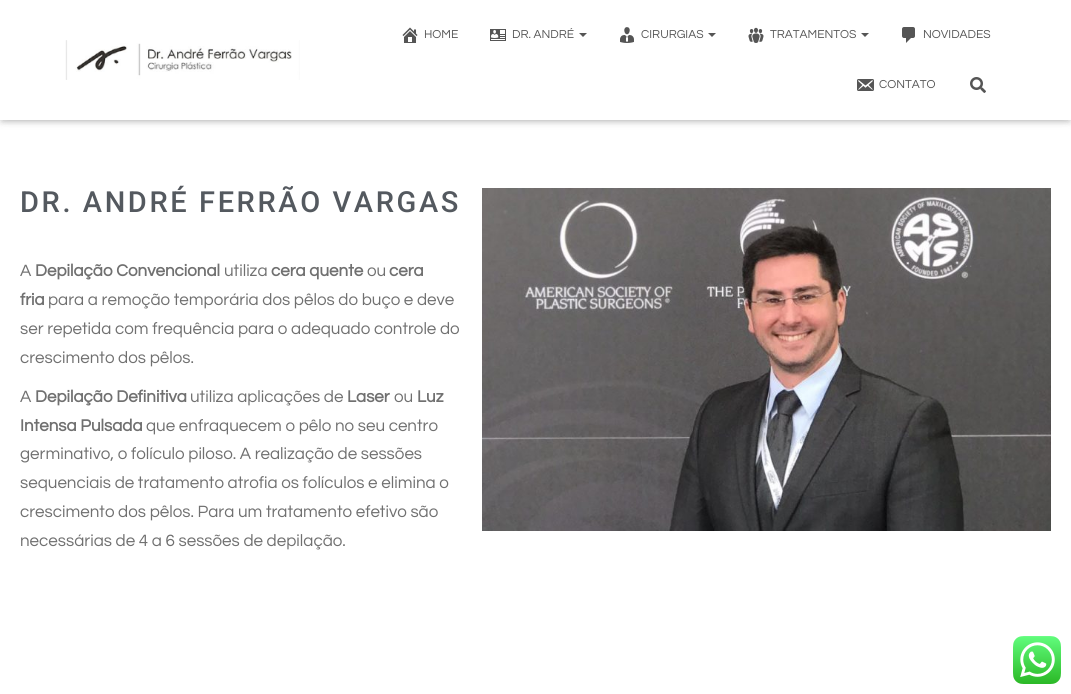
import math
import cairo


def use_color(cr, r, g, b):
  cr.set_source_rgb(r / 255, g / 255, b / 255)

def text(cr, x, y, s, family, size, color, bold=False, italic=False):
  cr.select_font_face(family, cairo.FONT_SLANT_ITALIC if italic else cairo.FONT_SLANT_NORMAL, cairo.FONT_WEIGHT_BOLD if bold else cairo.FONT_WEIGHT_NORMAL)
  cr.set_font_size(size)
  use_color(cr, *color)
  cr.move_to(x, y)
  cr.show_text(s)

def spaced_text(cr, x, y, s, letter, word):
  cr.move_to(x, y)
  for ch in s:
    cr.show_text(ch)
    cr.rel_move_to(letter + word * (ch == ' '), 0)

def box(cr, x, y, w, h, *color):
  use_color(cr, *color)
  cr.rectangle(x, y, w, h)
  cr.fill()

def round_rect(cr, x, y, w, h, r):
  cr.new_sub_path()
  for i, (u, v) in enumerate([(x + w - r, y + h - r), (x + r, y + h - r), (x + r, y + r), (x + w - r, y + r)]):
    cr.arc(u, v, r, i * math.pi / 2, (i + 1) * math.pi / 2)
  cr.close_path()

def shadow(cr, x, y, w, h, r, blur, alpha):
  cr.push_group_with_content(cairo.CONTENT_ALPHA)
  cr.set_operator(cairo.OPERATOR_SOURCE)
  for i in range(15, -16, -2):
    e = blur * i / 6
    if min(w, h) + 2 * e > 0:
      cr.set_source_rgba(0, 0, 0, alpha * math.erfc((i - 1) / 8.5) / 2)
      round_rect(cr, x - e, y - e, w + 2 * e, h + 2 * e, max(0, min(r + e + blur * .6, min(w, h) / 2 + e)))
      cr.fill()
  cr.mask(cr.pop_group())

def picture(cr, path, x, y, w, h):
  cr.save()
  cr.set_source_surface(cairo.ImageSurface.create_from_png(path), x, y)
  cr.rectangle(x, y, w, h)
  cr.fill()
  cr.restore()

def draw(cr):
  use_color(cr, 255, 255, 255)
  cr.paint()
  use_color(cr, 0, 0, 0)
  shadow(cr, 2, 6, 1067, 116, 0, 2.5, 0.1)
  shadow(cr, 0, 1, 1071, 120, 0, 5, 0.12)
  shadow(cr, 6, 7, 1059, 108, 0, 5, 0.42)
  box(cr, 0, 0, 1071, 120, 255, 255, 255)
  picture(cr, "img_01.png", 65, 40, 235, 40)
  picture(cr, "img_02.png", 402, 27, 16, 16)
  picture(cr, "img_03.png", 490, 29, 16, 12)
  use_color(cr, 85, 85, 85)
  cr.new_path()
  cr.move_to(579, 33)
  cr.line_to(587, 33)
  cr.line_to(583, 37)
  cr.close_path()
  cr.fill()
  picture(cr, "img_04.png", 620, 27, 14, 16)
  cr.new_path()
  cr.move_to(708, 33)
  cr.line_to(716, 33)
  cr.line_to(712, 37)
  cr.close_path()
  cr.fill()
  picture(cr, "img_05.png", 748, 27, 16, 16)
  cr.new_path()
  cr.move_to(861, 33)
  cr.line_to(869, 33)
  cr.line_to(865, 37)
  cr.close_path()
  cr.fill()
  picture(cr, "img_06.png", 902, 27, 13, 16)
  picture(cr, "img_07.png", 857, 79, 17, 12)
  picture(cr, "img_08.png", 970, 77, 16, 16)
  picture(cr, "img_09.png", 482, 188, 569, 343)
  picture(cr, "img_10.png", 1013, 636, 48, 48)
  text(cr, 424, 38, "HOME", "Questrial", 12, (85, 85, 85))
  text(cr, 512, 38, "DR. ANDRÉ", "Questrial", 12, (85, 85, 85))
  text(cr, 641, 38, "CIRURGIAS", "Questrial", 12, (85, 85, 85))
  text(cr, 770, 38, "TRATAMENTOS", "Questrial", 12, (85, 85, 85))
  text(cr, 923, 38, "NOVIDADES", "Questrial", 12, (85, 85, 85))
  text(cr, 879, 88, "CONTATO", "Questrial", 12, (85, 85, 85))
  text(cr, 961, 227, "a", "Questrial", 14, (149, 147, 149))
  text(cr, 961, 267, "…", "Questrial", 14, (118, 116, 118))
  cr.select_font_face("Roboto Medium")
  cr.set_font_size(29)
  use_color(cr, 84, 89, 95)
  spaced_text(cr, 20, 212, "DR. ANDRÉ FERRÃO VARGAS", 2.6, 0)
  text(cr, 20, 276, "A", "Questrial", 17, (112, 112, 112))
  text(cr, 35, 276, "Depilação Convencional", "Questrial", 17, (112, 112, 112), bold=True)
  text(cr, 224, 276, "utiliza", "Questrial", 17, (112, 112, 112))
  text(cr, 271, 276, "cera quente", "Questrial", 17, (112, 112, 112), bold=True)
  text(cr, 367, 276, "ou", "Questrial", 17, (112, 112, 112))
  text(cr, 389, 276, "cera", "Questrial", 17, (112, 112, 112), bold=True)
  text(cr, 20, 305, "fria", "Questrial", 17, (112, 112, 112), bold=True)
  text(cr, 48, 305, "para a remoção temporária dos pêlos do buço e deve", "Questrial", 17, (112, 112, 112))
  text(cr, 20, 334, "ser repetida com frequência para o adequado controle do", "Questrial", 17, (112, 112, 112))
  text(cr, 20, 363, "crescimento dos pêlos.", "Questrial", 17, (112, 112, 112))
  text(cr, 20, 402, "A", "Questrial", 17, (112, 112, 112))
  text(cr, 35, 402, "Depilação Definitiva", "Questrial", 17, (112, 112, 112), bold=True)
  text(cr, 190, 402, "utiliza aplicações de", "Questrial", 17, (112, 112, 112))
  text(cr, 347, 402, "Laser", "Questrial", 17, (112, 112, 112), bold=True)
  text(cr, 394, 402, "ou", "Questrial", 17, (112, 112, 112))
  text(cr, 417, 402, "Luz", "Questrial", 17, (112, 112, 112), bold=True)
  text(cr, 20, 431, "Intensa Pulsada", "Questrial", 17, (112, 112, 112), bold=True)
  text(cr, 146, 431, "que enfraquecem o pêlo no seu centro", "Questrial", 17, (112, 112, 112))
  text(cr, 20, 459, "germinativo, o folículo piloso. A realização de sessões", "Questrial", 17, (112, 112, 112))
  text(cr, 20, 488, "sequenciais de tratamento atrofia os folículos e elimina o", "Questrial", 17, (112, 112, 112))
  text(cr, 20, 517, "crescimento dos pêlos. Para um tratamento efetivo são", "Questrial", 17, (112, 112, 112))
  text(cr, 20, 546, "necessárias de 4 a 6 sessões de depilação.", "Questrial", 17, (112, 112, 112))


surface = cairo.ImageSurface(cairo.FORMAT_RGB24, 1071, 694)
cr = cairo.Context(surface)
options = cairo.FontOptions()
options.set_hint_metrics(cairo.HINT_METRICS_OFF)
options.set_hint_style(cairo.HINT_STYLE_NONE)
cr.set_font_options(options)
cr.set_miter_limit(4)
draw(cr)
surface.write_to_png("out.png")
